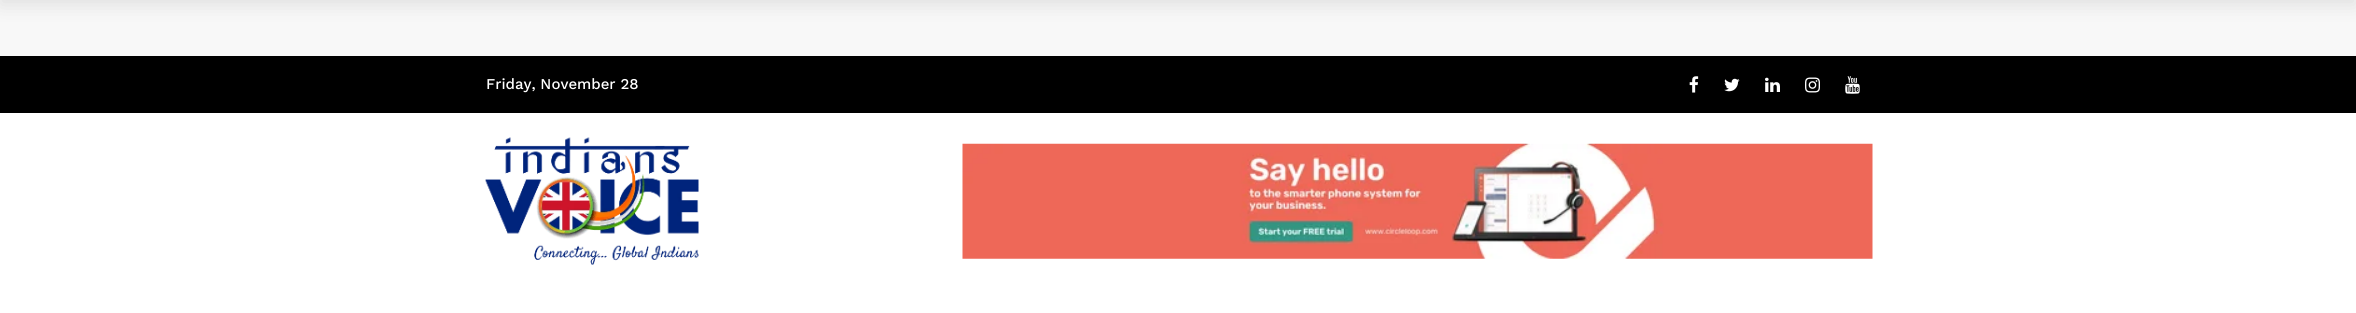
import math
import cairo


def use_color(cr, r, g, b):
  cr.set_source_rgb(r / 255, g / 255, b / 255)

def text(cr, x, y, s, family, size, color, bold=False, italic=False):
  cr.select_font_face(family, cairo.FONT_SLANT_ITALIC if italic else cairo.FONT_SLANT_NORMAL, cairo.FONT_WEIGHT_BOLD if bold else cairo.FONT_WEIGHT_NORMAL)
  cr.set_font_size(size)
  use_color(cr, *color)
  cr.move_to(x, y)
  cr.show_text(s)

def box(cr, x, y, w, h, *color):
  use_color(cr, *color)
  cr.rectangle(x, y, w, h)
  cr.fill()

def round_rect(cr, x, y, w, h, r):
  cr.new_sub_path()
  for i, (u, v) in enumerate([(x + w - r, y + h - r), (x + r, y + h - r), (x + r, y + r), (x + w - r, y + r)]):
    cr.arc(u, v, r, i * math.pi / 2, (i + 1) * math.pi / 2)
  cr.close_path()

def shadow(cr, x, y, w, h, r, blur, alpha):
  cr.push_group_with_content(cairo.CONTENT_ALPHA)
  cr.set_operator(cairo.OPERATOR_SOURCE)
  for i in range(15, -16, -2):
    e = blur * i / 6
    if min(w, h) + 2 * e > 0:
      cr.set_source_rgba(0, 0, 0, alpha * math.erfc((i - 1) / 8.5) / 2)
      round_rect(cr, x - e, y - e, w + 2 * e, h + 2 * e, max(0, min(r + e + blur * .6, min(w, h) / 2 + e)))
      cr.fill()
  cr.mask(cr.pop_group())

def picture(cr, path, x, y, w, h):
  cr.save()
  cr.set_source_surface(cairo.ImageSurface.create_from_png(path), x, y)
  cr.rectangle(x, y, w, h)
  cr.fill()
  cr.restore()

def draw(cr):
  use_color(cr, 255, 255, 255)
  cr.paint()
  box(cr, 0, 0, 2356, 56, 248, 248, 248)
  use_color(cr, 0, 0, 0)
  shadow(cr, 0, -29, 2356, 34, 0, 9.5, 0.1)
  box(cr, 0, 56, 2356, 57, 0, 0, 0)
  picture(cr, "img_01.png", 1689, 76, 10, 17)
  picture(cr, "img_02.png", 1724, 78, 16, 14)
  picture(cr, "img_03.png", 1765, 77, 15, 15)
  picture(cr, "img_04.png", 1805, 77, 15, 16)
  picture(cr, "img_05.png", 1845, 76, 15, 18)
  picture(cr, "img_06.png", 485, 137, 214, 128)
  picture(cr, "img_07.png", 962, 143, 911, 116)
  text(cr, 486, 89, "Friday, November 28", "Work Sans Medium", 15, (255, 255, 255))


surface = cairo.ImageSurface(cairo.FORMAT_RGB24, 2356, 313)
cr = cairo.Context(surface)
options = cairo.FontOptions()
options.set_hint_metrics(cairo.HINT_METRICS_OFF)
options.set_hint_style(cairo.HINT_STYLE_NONE)
cr.set_font_options(options)
cr.set_miter_limit(4)
draw(cr)
surface.write_to_png("out.png")
